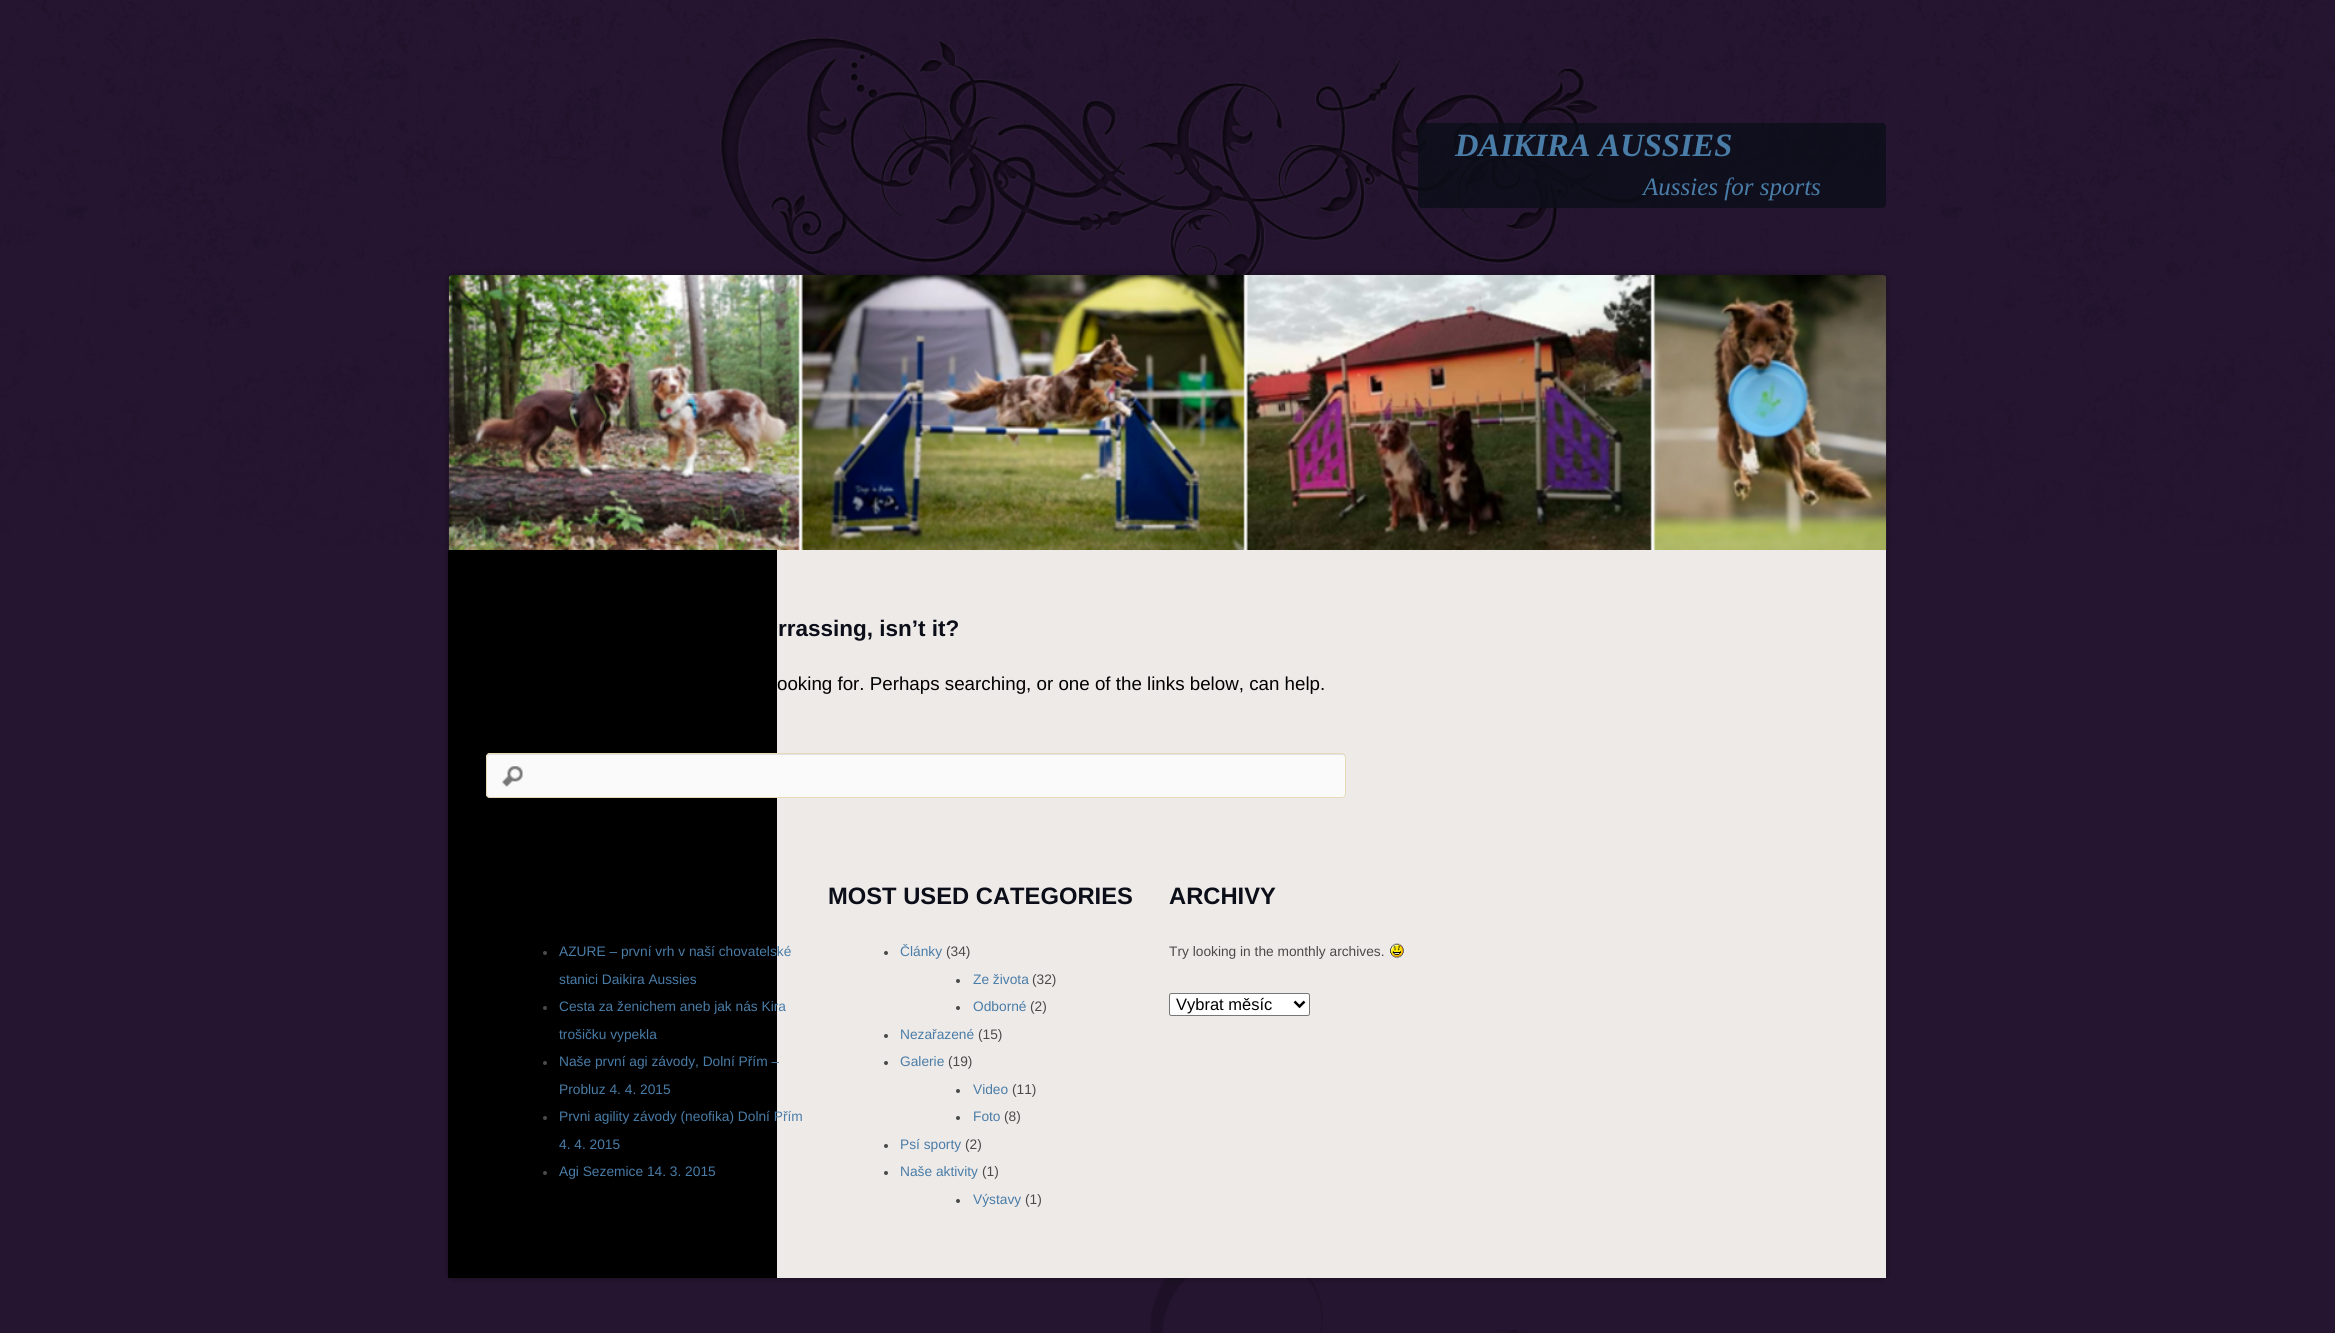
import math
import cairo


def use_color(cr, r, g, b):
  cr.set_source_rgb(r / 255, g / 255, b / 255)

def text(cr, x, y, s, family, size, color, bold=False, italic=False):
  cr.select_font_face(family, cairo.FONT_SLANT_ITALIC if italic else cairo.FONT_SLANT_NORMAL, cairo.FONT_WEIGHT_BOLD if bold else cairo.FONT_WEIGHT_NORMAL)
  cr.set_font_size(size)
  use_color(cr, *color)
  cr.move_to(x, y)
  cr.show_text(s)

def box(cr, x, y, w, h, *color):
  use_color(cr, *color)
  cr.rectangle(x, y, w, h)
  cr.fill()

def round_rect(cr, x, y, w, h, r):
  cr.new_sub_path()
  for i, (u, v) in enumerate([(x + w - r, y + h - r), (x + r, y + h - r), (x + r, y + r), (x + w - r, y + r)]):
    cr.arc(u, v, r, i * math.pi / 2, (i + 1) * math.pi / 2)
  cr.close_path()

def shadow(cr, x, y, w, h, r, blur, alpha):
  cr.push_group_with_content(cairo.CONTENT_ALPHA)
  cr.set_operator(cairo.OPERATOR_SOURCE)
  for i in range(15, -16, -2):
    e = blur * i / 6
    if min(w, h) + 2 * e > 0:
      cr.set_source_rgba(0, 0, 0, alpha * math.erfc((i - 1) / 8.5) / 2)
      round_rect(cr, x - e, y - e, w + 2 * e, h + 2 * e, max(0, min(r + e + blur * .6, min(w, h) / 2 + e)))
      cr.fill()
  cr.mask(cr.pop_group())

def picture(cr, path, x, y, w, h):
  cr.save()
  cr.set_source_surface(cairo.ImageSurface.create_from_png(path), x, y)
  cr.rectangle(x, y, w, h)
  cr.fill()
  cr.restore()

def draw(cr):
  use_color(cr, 38, 21, 49)
  cr.paint()
  picture(cr, "img_01.png", 0, 0, 2335, 546)
  picture(cr, "img_02.png", 1150, 1278, 378, 55)
  picture(cr, "img_03.png", 720, 37, 950, 238)
  cr.set_source_rgba(0.043, 0.055, 0.094, 0.8)
  round_rect(cr, 1418, 123, 468, 85, 4)
  cr.fill()
  use_color(cr, 0, 0, 0)
  shadow(cr, 449, 275, 1437, 1003, 4, 4, 0.4)
  picture(cr, "img_04.png", 448, 275, 1439, 275)
  box(cr, 777, 550, 1109, 728, 238, 234, 232)
  box(cr, 448, 550, 329, 728, 0, 0, 0)
  use_color(cr, 250, 250, 250)
  round_rect(cr, 486, 753, 860, 45, 4)
  cr.fill()
  picture(cr, "img_05.png", 502, 766, 21, 21)
  use_color(cr, 225, 225, 225)
  cr.new_path()
  cr.move_to(490, 755)
  cr.line_to(1342, 755)
  cr.curve_to(1344, 755, 1345, 756, 1345, 758)
  cr.line_to(1345, 756)
  cr.curve_to(1345, 755, 1344, 754, 1342, 754)
  cr.line_to(490, 754)
  cr.curve_to(489, 754, 488, 755, 488, 756)
  cr.line_to(488, 758)
  cr.curve_to(488, 756, 489, 755, 490, 755)
  cr.close_path()
  cr.fill()
  round_rect(cr, 486.5, 753.5, 859, 44, 3.5)
  use_color(cr, 231, 217, 185)
  cr.set_line_width(1)
  cr.stroke()
  use_color(cr, 74, 74, 73)
  cr.arc(545, 953, 2, 0, 2 * math.pi)
  cr.fill()
  cr.arc(545, 1008, 2, 0, 2 * math.pi)
  cr.fill()
  cr.arc(545, 1063, 2, 0, 2 * math.pi)
  cr.fill()
  cr.arc(545, 1118, 2, 0, 2 * math.pi)
  cr.fill()
  cr.arc(545, 1173, 2, 0, 2 * math.pi)
  cr.fill()
  cr.arc(886, 953, 2, 0, 2 * math.pi)
  cr.fill()
  cr.arc(958, 981, 2, 0, 2 * math.pi)
  cr.fill()
  cr.arc(958, 1008, 2, 0, 2 * math.pi)
  cr.fill()
  cr.arc(886, 1036, 2, 0, 2 * math.pi)
  cr.fill()
  cr.arc(886, 1063, 2, 0, 2 * math.pi)
  cr.fill()
  cr.arc(958, 1091, 2, 0, 2 * math.pi)
  cr.fill()
  cr.arc(958, 1118, 2, 0, 2 * math.pi)
  cr.fill()
  cr.arc(886, 1146, 2, 0, 2 * math.pi)
  cr.fill()
  cr.arc(886, 1173, 2, 0, 2 * math.pi)
  cr.fill()
  cr.arc(958, 1201, 2, 0, 2 * math.pi)
  cr.fill()
  picture(cr, "img_06.png", 1390, 943, 14, 15)
  use_color(cr, 255, 255, 255)
  round_rect(cr, 1169.5, 993.5, 140, 22, 2)
  cr.fill_preserve()
  use_color(cr, 118, 118, 118)
  cr.stroke()
  cr.new_path()
  cr.move_to(1294.5, 1001.5)
  cr.line_to(1299.5, 1006.5)
  cr.line_to(1304.5, 1001.5)
  use_color(cr, 0, 0, 0)
  cr.set_line_width(2.5)
  cr.stroke()
  text(cr, 1455, 156, "DAIKIRA AUSSIES", "Liberation Serif", 32.5, (73, 124, 167), bold=True, italic=True)
  text(cr, 1643, 195, "Aussies for sports", "Liberation Serif", 25, (73, 124, 167), italic=True)
  text(cr, 778, 636, "rrassing, isn’t it?", "Liberation Sans", 22.5, (11, 14, 24), bold=True)
  text(cr, 777, 690, "ooking for. Perhaps searching, or one of the links below, can help.", "Liberation Sans", 18.75, (0, 0, 0))
  text(cr, 559, 956, "AZURE – první vrh v naší chovatelské", "Liberation Sans", 13.75, (73, 124, 167))
  text(cr, 559, 984, "stanici Daikira Aussies", "Liberation Sans", 13.75, (73, 124, 167))
  text(cr, 559, 1011, "Cesta za ženichem aneb jak nás Kira", "Liberation Sans", 13.75, (73, 124, 167))
  text(cr, 559, 1039, "trošičku vypekla", "Liberation Sans", 13.75, (73, 124, 167))
  text(cr, 559, 1066, "Naše první agi závody, Dolní Přím –", "Liberation Sans", 13.75, (73, 124, 167))
  text(cr, 559, 1094, "Probluz 4. 4. 2015", "Liberation Sans", 13.75, (73, 124, 167))
  text(cr, 559, 1121, "Prvni agility závody (neofika) Dolní Přím", "Liberation Sans", 13.75, (73, 124, 167))
  text(cr, 559, 1149, "4. 4. 2015", "Liberation Sans", 13.75, (73, 124, 167))
  text(cr, 559, 1176, "Agi Sezemice 14. 3. 2015", "Liberation Sans", 13.75, (73, 124, 167))
  text(cr, 828, 904, "MOST USED CATEGORIES", "Liberation Sans", 23.75, (11, 14, 24), bold=True)
  text(cr, 900, 956, "Články", "Liberation Sans", 13.75, (73, 124, 167))
  text(cr, 946, 956, "(34)", "Liberation Sans", 13.75, (74, 74, 73))
  text(cr, 973, 984, "Ze života", "Liberation Sans", 13.75, (73, 124, 167))
  text(cr, 1032, 984, "(32)", "Liberation Sans", 13.75, (74, 74, 73))
  text(cr, 973, 1011, "Odborné", "Liberation Sans", 13.75, (73, 124, 167))
  text(cr, 1030, 1011, "(2)", "Liberation Sans", 13.75, (74, 74, 73))
  text(cr, 900, 1039, "Nezařazené", "Liberation Sans", 13.75, (73, 124, 167))
  text(cr, 978, 1039, "(15)", "Liberation Sans", 13.75, (74, 74, 73))
  text(cr, 900, 1066, "Galerie", "Liberation Sans", 13.75, (73, 124, 167))
  text(cr, 948, 1066, "(19)", "Liberation Sans", 13.75, (74, 74, 73))
  text(cr, 973, 1094, "Video", "Liberation Sans", 13.75, (73, 124, 167))
  text(cr, 1012, 1094, "(11)", "Liberation Sans", 13.75, (74, 74, 73))
  text(cr, 973, 1121, "Foto", "Liberation Sans", 13.75, (73, 124, 167))
  text(cr, 1004, 1121, "(8)", "Liberation Sans", 13.75, (74, 74, 73))
  text(cr, 900, 1149, "Psí sporty", "Liberation Sans", 13.75, (73, 124, 167))
  text(cr, 965, 1149, "(2)", "Liberation Sans", 13.75, (74, 74, 73))
  text(cr, 900, 1176, "Naše aktivity", "Liberation Sans", 13.75, (73, 124, 167))
  text(cr, 982, 1176, "(1)", "Liberation Sans", 13.75, (74, 74, 73))
  text(cr, 973, 1204, "Výstavy", "Liberation Sans", 13.75, (73, 124, 167))
  text(cr, 1025, 1204, "(1)", "Liberation Sans", 13.75, (74, 74, 73))
  text(cr, 1169, 904, "ARCHIVY", "Liberation Sans", 23.75, (11, 14, 24), bold=True)
  text(cr, 1169, 956, "Try looking in the monthly archives.", "Liberation Sans", 13.75, (74, 74, 73))
  text(cr, 1176, 1010, "Vybrat měsíc", "Liberation Sans", 16.5, (0, 0, 0))


surface = cairo.ImageSurface(cairo.FORMAT_RGB24, 2335, 1333)
cr = cairo.Context(surface)
options = cairo.FontOptions()
options.set_hint_metrics(cairo.HINT_METRICS_OFF)
options.set_hint_style(cairo.HINT_STYLE_NONE)
cr.set_font_options(options)
cr.set_miter_limit(4)
draw(cr)
surface.write_to_png("out.png")
